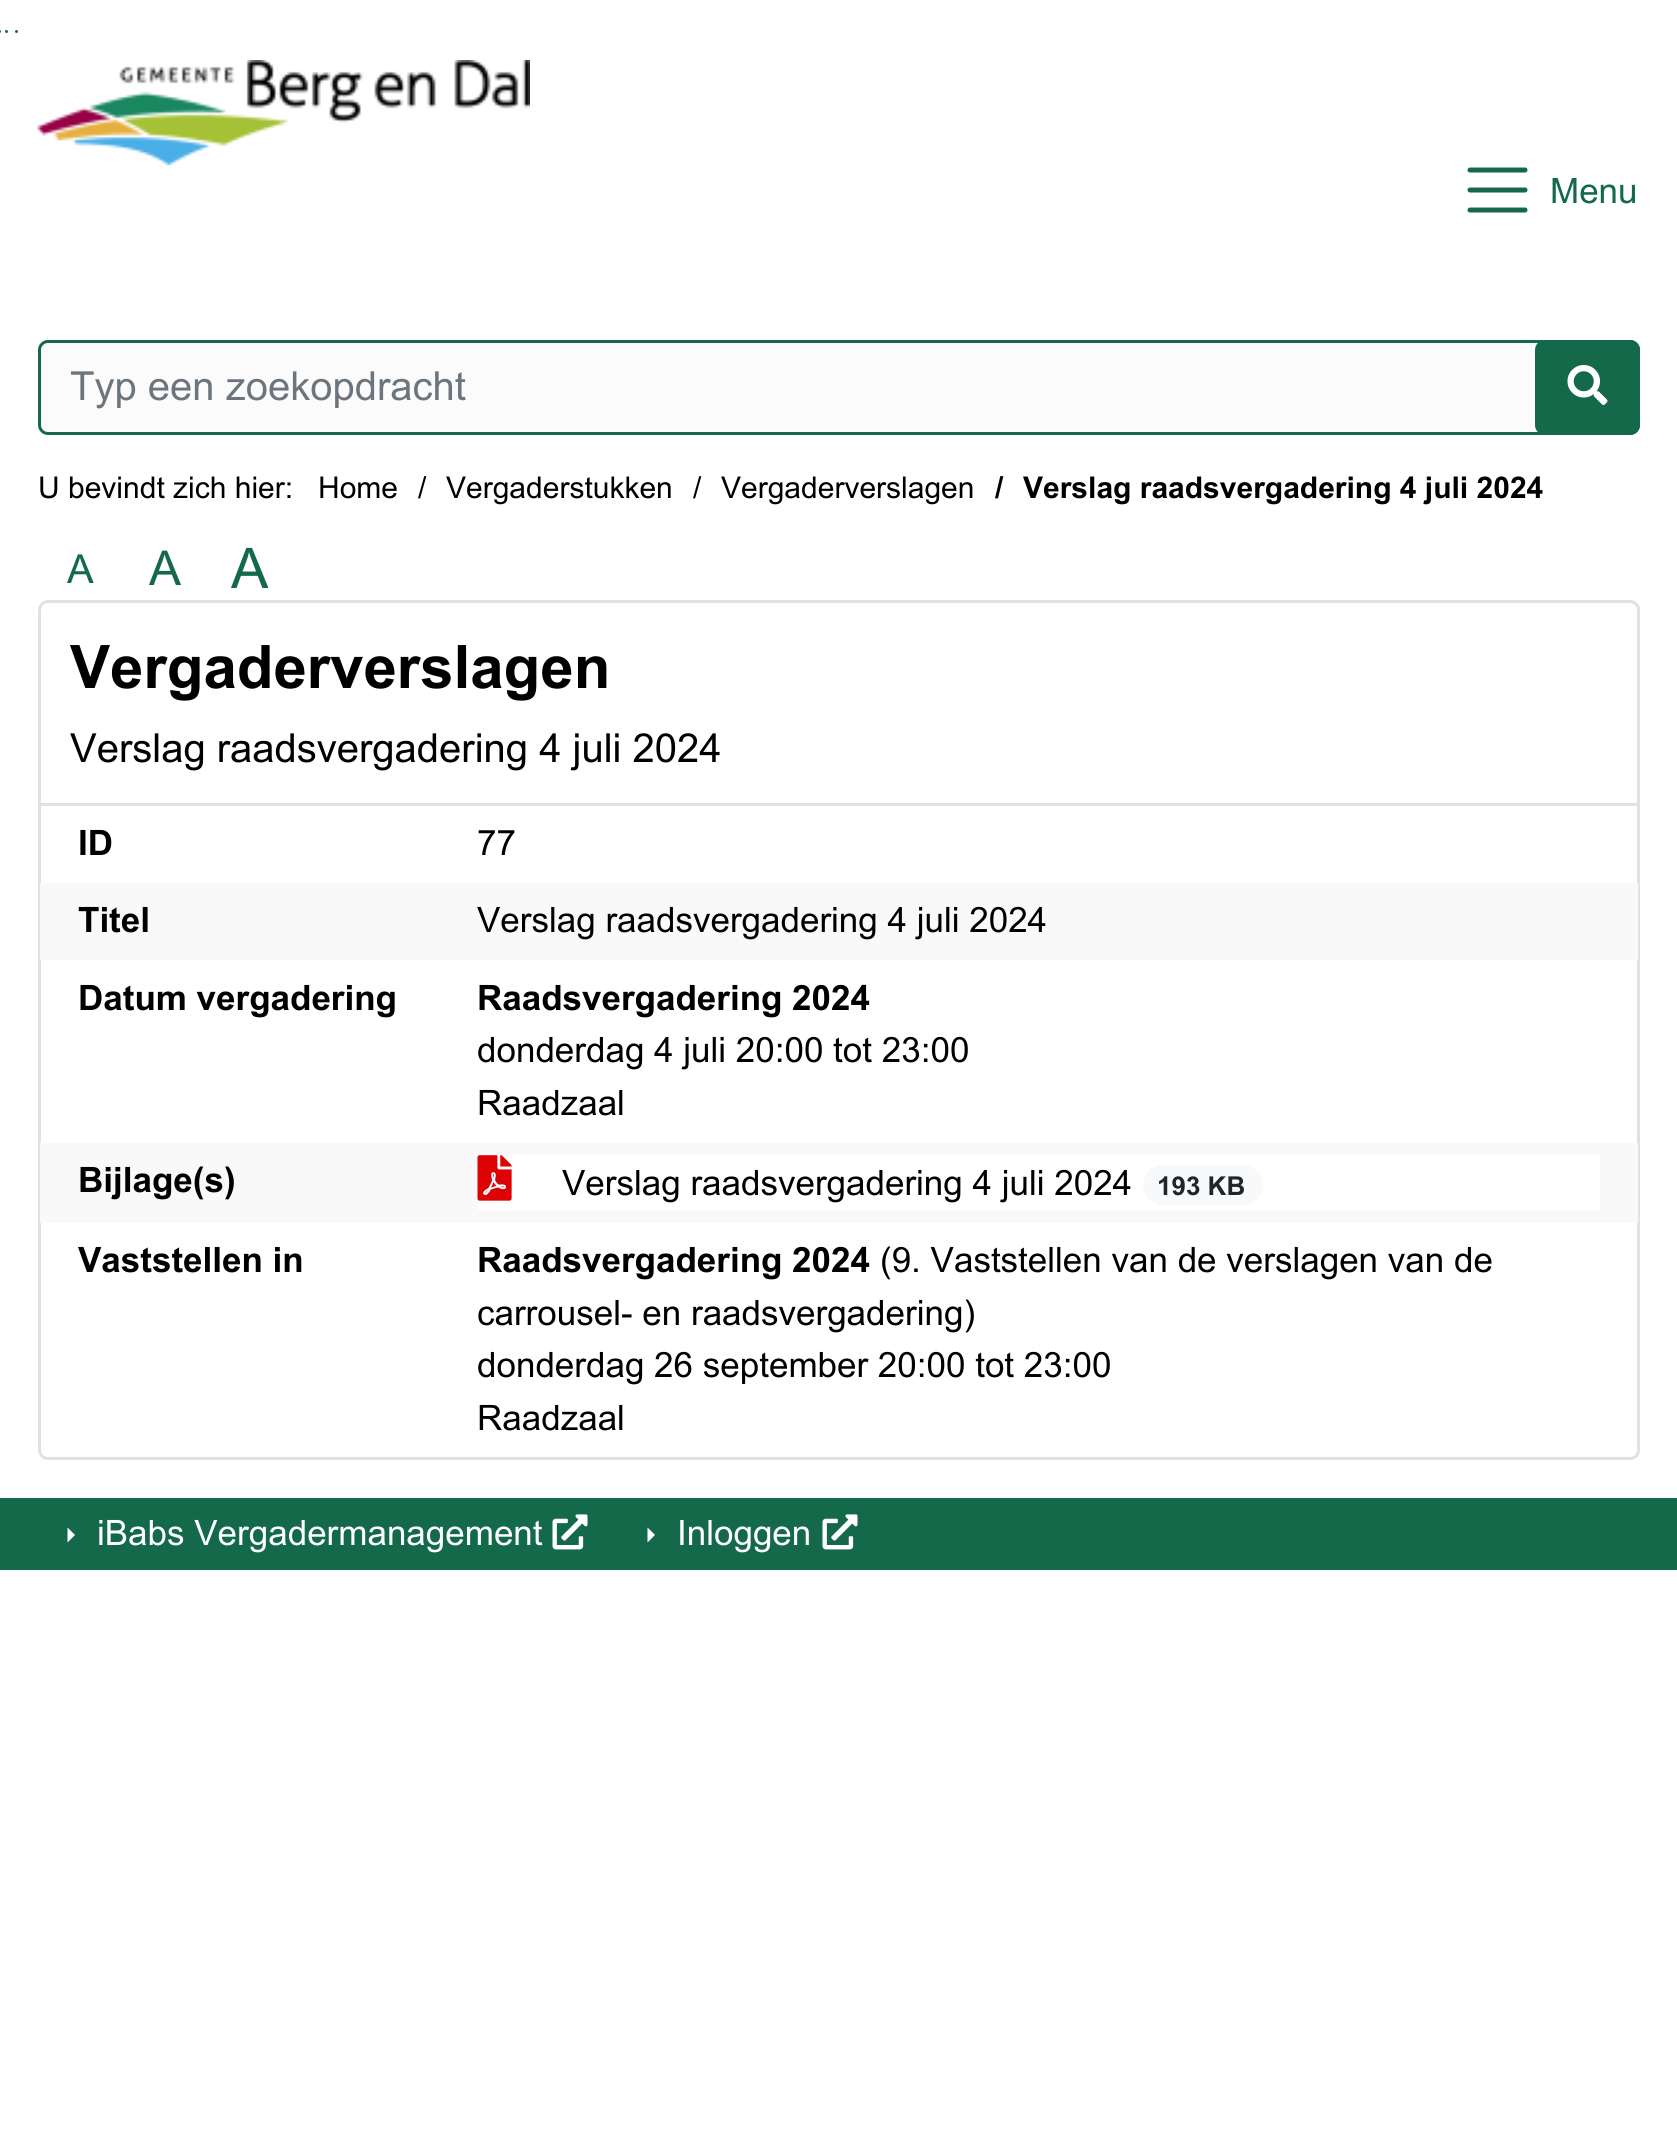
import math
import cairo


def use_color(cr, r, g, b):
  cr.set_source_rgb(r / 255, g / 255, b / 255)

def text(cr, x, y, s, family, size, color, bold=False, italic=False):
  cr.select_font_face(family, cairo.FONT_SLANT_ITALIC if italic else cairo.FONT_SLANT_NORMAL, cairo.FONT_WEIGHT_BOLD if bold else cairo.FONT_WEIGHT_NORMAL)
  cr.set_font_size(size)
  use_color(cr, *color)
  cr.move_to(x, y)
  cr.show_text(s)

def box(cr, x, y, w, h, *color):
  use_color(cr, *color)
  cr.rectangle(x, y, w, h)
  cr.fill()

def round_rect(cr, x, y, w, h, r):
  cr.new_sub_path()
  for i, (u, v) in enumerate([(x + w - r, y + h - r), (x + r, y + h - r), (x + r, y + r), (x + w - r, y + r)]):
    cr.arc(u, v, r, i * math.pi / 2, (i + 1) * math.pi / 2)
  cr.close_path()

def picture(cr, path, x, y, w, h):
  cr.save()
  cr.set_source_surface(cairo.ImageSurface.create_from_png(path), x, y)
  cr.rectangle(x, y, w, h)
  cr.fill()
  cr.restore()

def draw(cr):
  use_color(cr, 255, 255, 255)
  cr.paint()
  use_color(cr, 20, 105, 75)
  cr.arc(-0.5, 31.5, 1.5, 0, 2 * math.pi)
  cr.fill()
  cr.arc(6.5, 31.5, 1.5, 0, 2 * math.pi)
  cr.fill()
  cr.arc(16.5, 31.5, 1.5, 0, 2 * math.pi)
  cr.fill()
  picture(cr, "img_01.png", 37, 60, 493, 105)
  cr.new_path()
  cr.move_to(1470, 170)
  cr.line_to(1525, 170)
  cr.move_to(1470, 190)
  cr.line_to(1525, 190)
  cr.move_to(1470, 210)
  cr.line_to(1525, 210)
  cr.set_line_width(5)
  cr.set_line_cap(cairo.LINE_CAP_ROUND)
  cr.stroke()
  use_color(cr, 251, 251, 251)
  round_rect(cr, 39.5, 341.5, 1599, 92, 8.5)
  cr.fill_preserve()
  use_color(cr, 20, 105, 75)
  cr.set_line_width(3)
  cr.set_line_cap(cairo.LINE_CAP_BUTT)
  cr.stroke()
  round_rect(cr, 1535, 340, 105, 95, 10)
  cr.fill()
  picture(cr, "img_02.png", 1567, 365, 41, 40)
  round_rect(cr, 39.5, 601.5, 1599, 857, 8.5)
  use_color(cr, 222, 226, 230)
  cr.stroke()
  box(cr, 40, 803, 1598, 3, 222, 226, 230)
  box(cr, 40, 883, 1598, 77, 249, 249, 249)
  box(cr, 40, 1143, 1598, 80, 249, 249, 249)
  box(cr, 478, 1155, 1122, 55, 255, 255, 255)
  picture(cr, "img_03.png", 477, 1155, 35, 46)
  use_color(cr, 248, 249, 250)
  round_rect(cr, 1143, 1165, 120, 40, 20)
  cr.fill()
  box(cr, 0, 1498, 1677, 72, 20, 105, 75)
  use_color(cr, 255, 255, 255)
  cr.new_path()
  cr.move_to(67.5, 1542.5)
  cr.line_to(67.5, 1527.5)
  cr.line_to(75, 1535)
  cr.close_path()
  cr.fill()
  picture(cr, "img_04.png", 552, 1514, 36, 36)
  cr.new_path()
  cr.move_to(647.5, 1542.5)
  cr.line_to(647.5, 1527.5)
  cr.line_to(655, 1535)
  cr.close_path()
  cr.fill()
  picture(cr, "img_04.png", 822, 1514, 36, 36)
  text(cr, 1550, 203, "Menu", "Arial", 35, (20, 105, 75))
  text(cr, 70, 400, "Typ een zoekopdracht", "Arial", 40, (108, 117, 125))
  text(cr, 38, 498, "U bevindt zich hier:", "Arial", 30, (0, 0, 0))
  text(cr, 318, 498, "Home", "Arial", 30, (0, 0, 0))
  text(cr, 418, 498, "/", "Arial", 30, (0, 0, 0))
  text(cr, 446, 498, "Vergaderstukken", "Arial", 30, (0, 0, 0))
  text(cr, 693, 498, "/", "Arial", 30, (0, 0, 0))
  text(cr, 721, 498, "Vergaderverslagen", "Arial", 30, (0, 0, 0))
  text(cr, 995, 498, "/", "Arial", 30, (0, 0, 0), bold=True)
  text(cr, 1023, 498, "Verslag raadsvergadering 4 juli 2024", "Arial", 30, (0, 0, 0), bold=True)
  text(cr, 67, 583, "A", "Arial", 40, (20, 105, 75))
  text(cr, 149, 585, "A", "Arial", 48, (20, 105, 75))
  text(cr, 231, 588, "A", "Arial", 56, (20, 105, 75))
  text(cr, 70, 688, "Vergaderverslagen", "Arial", 60, (0, 0, 0), bold=True)
  text(cr, 70, 762, "Verslag raadsvergadering 4 juli 2024", "Arial", 40, (0, 0, 0))
  text(cr, 78, 855, "ID", "Arial", 35, (0, 0, 0), bold=True)
  text(cr, 477, 855, "77", "Arial", 35, (0, 0, 0))
  text(cr, 78, 932, "Titel", "Arial", 35, (0, 0, 0), bold=True)
  text(cr, 477, 932, "Verslag raadsvergadering 4 juli 2024", "Arial", 35, (0, 0, 0))
  text(cr, 78, 1010, "Datum vergadering", "Arial", 35, (0, 0, 0), bold=True)
  text(cr, 477, 1010, "Raadsvergadering 2024", "Arial", 35, (0, 0, 0), bold=True)
  text(cr, 477, 1062, "donderdag 4 juli 20:00 tot 23:00", "Arial", 35, (0, 0, 0))
  text(cr, 477, 1115, "Raadzaal", "Arial", 35, (0, 0, 0))
  text(cr, 78, 1192, "Bijlage(s)", "Arial", 35, (0, 0, 0), bold=True)
  text(cr, 562, 1195, "Verslag raadsvergadering 4 juli 2024", "Arial", 35, (0, 0, 0))
  text(cr, 1157, 1195, "193 KB", "Arial", 26, (33, 37, 41), bold=True)
  text(cr, 78, 1272, "Vaststellen in", "Arial", 35, (0, 0, 0), bold=True)
  text(cr, 477, 1272, "Raadsvergadering 2024", "Arial", 35, (0, 0, 0), bold=True)
  text(cr, 880, 1272, "(9. Vaststellen van de verslagen van de", "Arial", 35, (0, 0, 0))
  text(cr, 477, 1325, "carrousel- en raadsvergadering)", "Arial", 35, (0, 0, 0))
  text(cr, 477, 1377, "donderdag 26 september 20:00 tot 23:00", "Arial", 35, (0, 0, 0))
  text(cr, 477, 1430, "Raadzaal", "Arial", 35, (0, 0, 0))
  text(cr, 97, 1545, "iBabs Vergadermanagement", "Arial", 35, (255, 255, 255))
  text(cr, 677, 1545, "Inloggen", "Arial", 35, (255, 255, 255))


surface = cairo.ImageSurface(cairo.FORMAT_RGB24, 1677, 2143)
cr = cairo.Context(surface)
options = cairo.FontOptions()
options.set_hint_metrics(cairo.HINT_METRICS_OFF)
options.set_hint_style(cairo.HINT_STYLE_NONE)
cr.set_font_options(options)
cr.set_miter_limit(4)
draw(cr)
surface.write_to_png("out.png")
